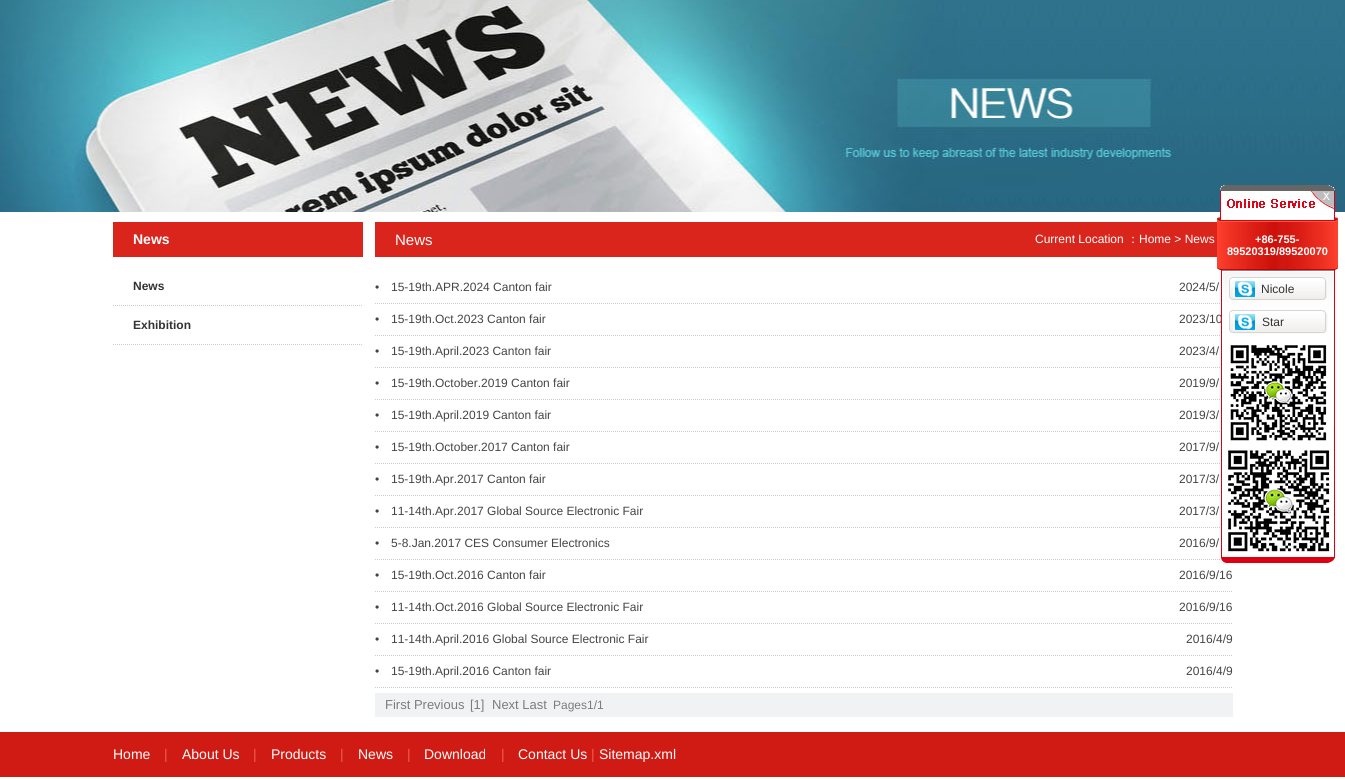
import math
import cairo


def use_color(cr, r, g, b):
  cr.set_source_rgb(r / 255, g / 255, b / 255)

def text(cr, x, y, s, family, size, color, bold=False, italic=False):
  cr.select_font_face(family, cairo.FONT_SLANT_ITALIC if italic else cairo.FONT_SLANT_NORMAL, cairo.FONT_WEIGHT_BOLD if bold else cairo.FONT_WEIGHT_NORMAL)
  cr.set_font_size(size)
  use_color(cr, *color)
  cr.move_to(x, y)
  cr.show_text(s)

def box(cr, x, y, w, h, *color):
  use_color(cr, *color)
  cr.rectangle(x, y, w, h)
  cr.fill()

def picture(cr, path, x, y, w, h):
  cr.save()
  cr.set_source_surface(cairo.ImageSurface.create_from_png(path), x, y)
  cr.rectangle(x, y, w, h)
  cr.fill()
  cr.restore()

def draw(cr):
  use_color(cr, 255, 255, 255)
  cr.paint()
  picture(cr, "img_01.png", 0, 0, 1345, 212)
  box(cr, 113, 222, 250, 35, 218, 37, 28)
  cr.new_path()
  cr.move_to(113, 305.5)
  cr.line_to(363, 305.5)
  use_color(cr, 204, 204, 204)
  cr.set_line_width(1)
  cr.set_dash([1, 1])
  cr.stroke()
  cr.new_path()
  cr.move_to(113, 344.5)
  cr.line_to(363, 344.5)
  cr.stroke()
  box(cr, 375, 222, 842, 35, 218, 37, 28)
  cr.new_path()
  cr.move_to(375, 303.5)
  cr.line_to(1233, 303.5)
  use_color(cr, 204, 204, 204)
  cr.stroke()
  cr.new_path()
  cr.move_to(375, 335.5)
  cr.line_to(1233, 335.5)
  cr.stroke()
  cr.new_path()
  cr.move_to(375, 367.5)
  cr.line_to(1233, 367.5)
  cr.stroke()
  cr.new_path()
  cr.move_to(375, 399.5)
  cr.line_to(1233, 399.5)
  cr.stroke()
  cr.new_path()
  cr.move_to(375, 431.5)
  cr.line_to(1233, 431.5)
  cr.stroke()
  cr.new_path()
  cr.move_to(375, 463.5)
  cr.line_to(1233, 463.5)
  cr.stroke()
  cr.new_path()
  cr.move_to(375, 495.5)
  cr.line_to(1233, 495.5)
  cr.stroke()
  cr.new_path()
  cr.move_to(375, 527.5)
  cr.line_to(1233, 527.5)
  cr.stroke()
  cr.new_path()
  cr.move_to(375, 559.5)
  cr.line_to(1233, 559.5)
  cr.stroke()
  cr.new_path()
  cr.move_to(375, 591.5)
  cr.line_to(1233, 591.5)
  cr.stroke()
  cr.new_path()
  cr.move_to(375, 623.5)
  cr.line_to(1233, 623.5)
  cr.stroke()
  cr.new_path()
  cr.move_to(375, 655.5)
  cr.line_to(1233, 655.5)
  cr.stroke()
  cr.new_path()
  cr.move_to(375, 687.5)
  cr.line_to(1233, 687.5)
  cr.stroke()
  box(cr, 375, 693, 858, 24, 241, 242, 244)
  picture(cr, "img_02.png", 1220, 185, 115, 32)
  picture(cr, "img_03.png", 1217, 217, 121, 6)
  picture(cr, "img_04.png", 1217, 223, 121, 44)
  picture(cr, "img_05.png", 1217, 267, 121, 5)
  picture(cr, "img_12.png", 1221, 557, 114, 6)
  box(cr, 0, 732, 1345, 45, 207, 27, 20)
  text(cr, 133, 244, "News", "Liberation Sans", 14, (255, 255, 255), bold=True)
  text(cr, 133, 290, "News", "Liberation Sans", 12, (51, 51, 51), bold=True)
  text(cr, 133, 329, "Exhibition", "Liberation Sans", 12, (51, 51, 51), bold=True)
  text(cr, 395, 245, "News", "Liberation Sans", 15, (255, 255, 255))
  text(cr, 1035, 243, "Current Location", "Liberation Sans", 12, (255, 255, 255))
  text(cr, 1127, 243, "：", "WenQuanYi Zen Hei Medium", 12, (255, 255, 255))
  text(cr, 1139, 243, "Home > News", "Liberation Sans", 12, (255, 255, 255))
  text(cr, 375, 291, "•", "Liberation Sans", 12, (68, 68, 68))
  text(cr, 391, 291, "15-19th.APR.2024 Canton fair", "Liberation Sans", 12, (68, 68, 68))
  text(cr, 1179, 291, "2024/5/", "Liberation Sans", 12, (68, 68, 68))
  text(cr, 375, 323, "•", "Liberation Sans", 12, (68, 68, 68))
  text(cr, 391, 323, "15-19th.Oct.2023 Canton fair", "Liberation Sans", 12, (68, 68, 68))
  text(cr, 1179, 323, "2023/10", "Liberation Sans", 12, (68, 68, 68))
  text(cr, 375, 355, "•", "Liberation Sans", 12, (68, 68, 68))
  text(cr, 391, 355, "15-19th.April.2023 Canton fair", "Liberation Sans", 12, (68, 68, 68))
  text(cr, 1179, 355, "2023/4/", "Liberation Sans", 12, (68, 68, 68))
  text(cr, 375, 387, "•", "Liberation Sans", 12, (68, 68, 68))
  text(cr, 391, 387, "15-19th.October.2019 Canton fair", "Liberation Sans", 12, (68, 68, 68))
  text(cr, 1179, 387, "2019/9/", "Liberation Sans", 12, (68, 68, 68))
  text(cr, 375, 419, "•", "Liberation Sans", 12, (68, 68, 68))
  text(cr, 391, 419, "15-19th.April.2019 Canton fair", "Liberation Sans", 12, (68, 68, 68))
  text(cr, 1179, 419, "2019/3/", "Liberation Sans", 12, (68, 68, 68))
  text(cr, 375, 451, "•", "Liberation Sans", 12, (68, 68, 68))
  text(cr, 391, 451, "15-19th.October.2017 Canton fair", "Liberation Sans", 12, (68, 68, 68))
  text(cr, 1179, 451, "2017/9/", "Liberation Sans", 12, (68, 68, 68))
  text(cr, 375, 483, "•", "Liberation Sans", 12, (68, 68, 68))
  text(cr, 391, 483, "15-19th.Apr.2017 Canton fair", "Liberation Sans", 12, (68, 68, 68))
  text(cr, 1179, 483, "2017/3/", "Liberation Sans", 12, (68, 68, 68))
  text(cr, 375, 515, "•", "Liberation Sans", 12, (68, 68, 68))
  text(cr, 391, 515, "11-14th.Apr.2017 Global Source Electronic Fair", "Liberation Sans", 12, (68, 68, 68))
  text(cr, 1179, 515, "2017/3/", "Liberation Sans", 12, (68, 68, 68))
  text(cr, 375, 547, "•", "Liberation Sans", 12, (68, 68, 68))
  text(cr, 391, 547, "5-8.Jan.2017 CES Consumer Electronics", "Liberation Sans", 12, (68, 68, 68))
  text(cr, 1179, 547, "2016/9/", "Liberation Sans", 12, (68, 68, 68))
  text(cr, 375, 579, "•", "Liberation Sans", 12, (68, 68, 68))
  text(cr, 391, 579, "15-19th.Oct.2016 Canton fair", "Liberation Sans", 12, (68, 68, 68))
  text(cr, 1179, 579, "2016/9/16", "Liberation Sans", 12, (68, 68, 68))
  text(cr, 375, 611, "•", "Liberation Sans", 12, (68, 68, 68))
  text(cr, 391, 611, "11-14th.Oct.2016 Global Source Electronic Fair", "Liberation Sans", 12, (68, 68, 68))
  text(cr, 1179, 611, "2016/9/16", "Liberation Sans", 12, (68, 68, 68))
  text(cr, 375, 643, "•", "Liberation Sans", 12, (68, 68, 68))
  text(cr, 391, 643, "11-14th.April.2016 Global Source Electronic Fair", "Liberation Sans", 12, (68, 68, 68))
  text(cr, 1186, 643, "2016/4/9", "Liberation Sans", 12, (68, 68, 68))
  text(cr, 375, 675, "•", "Liberation Sans", 12, (68, 68, 68))
  text(cr, 391, 675, "15-19th.April.2016 Canton fair", "Liberation Sans", 12, (68, 68, 68))
  text(cr, 1186, 675, "2016/4/9", "Liberation Sans", 12, (68, 68, 68))
  text(cr, 385, 709, "First Previous", "Liberation Sans", 13, (124, 124, 124))
  text(cr, 470, 709, "[1]", "Liberation Sans", 13, (124, 124, 124))
  text(cr, 492, 709, "Next Last", "Liberation Sans", 13, (124, 124, 124))
  text(cr, 553, 709, "Pages1/1", "Liberation Sans", 12, (124, 124, 124))
  text(cr, 1255, 243, "+86-755-", "Liberation Sans", 11, (255, 255, 255), bold=True)
  text(cr, 1227, 255, "89520319/89520070", "Liberation Sans", 11, (255, 255, 255), bold=True)
  picture(cr, "img_06.png", 1221, 272, 114, 285)
  picture(cr, "img_07.png", 1229, 277, 99, 23)
  picture(cr, "img_08.png", 1233, 281, 23, 16)
  text(cr, 1261, 293, "Nicole", "Liberation Sans", 12, (51, 51, 51))
  picture(cr, "img_09.png", 1229, 310, 99, 24)
  picture(cr, "img_08.png", 1233, 314, 23, 16)
  text(cr, 1262, 326, "Star", "Liberation Sans", 12, (51, 51, 51))
  picture(cr, "img_10.png", 1223, 343, 110, 104)
  picture(cr, "img_11.png", 1223, 447, 110, 105)
  text(cr, 113, 759, "Home", "Liberation Sans", 14, (255, 255, 255))
  text(cr, 164, 759, "|", "Liberation Sans", 14, (242, 90, 84))
  text(cr, 182, 759, "About Us", "Liberation Sans", 14, (255, 255, 255))
  text(cr, 253, 759, "|", "Liberation Sans", 14, (242, 90, 84))
  text(cr, 271, 759, "Products", "Liberation Sans", 14, (255, 255, 255))
  text(cr, 340, 759, "|", "Liberation Sans", 14, (242, 90, 84))
  text(cr, 358, 759, "News", "Liberation Sans", 14, (255, 255, 255))
  text(cr, 407, 759, "|", "Liberation Sans", 14, (242, 90, 84))
  text(cr, 424, 759, "Download", "Liberation Sans", 14, (255, 255, 255))
  text(cr, 501, 759, "|", "Liberation Sans", 14, (242, 90, 84))
  text(cr, 518, 759, "Contact Us", "Liberation Sans", 14, (255, 255, 255))
  text(cr, 591, 759, "|", "Liberation Sans", 14, (242, 90, 84))
  text(cr, 599, 759, "Sitemap.xml", "Liberation Sans", 14, (255, 255, 255))


surface = cairo.ImageSurface(cairo.FORMAT_RGB24, 1345, 780)
cr = cairo.Context(surface)
options = cairo.FontOptions()
options.set_hint_metrics(cairo.HINT_METRICS_OFF)
options.set_hint_style(cairo.HINT_STYLE_NONE)
cr.set_font_options(options)
cr.set_miter_limit(4)
draw(cr)
surface.write_to_png("out.png")
